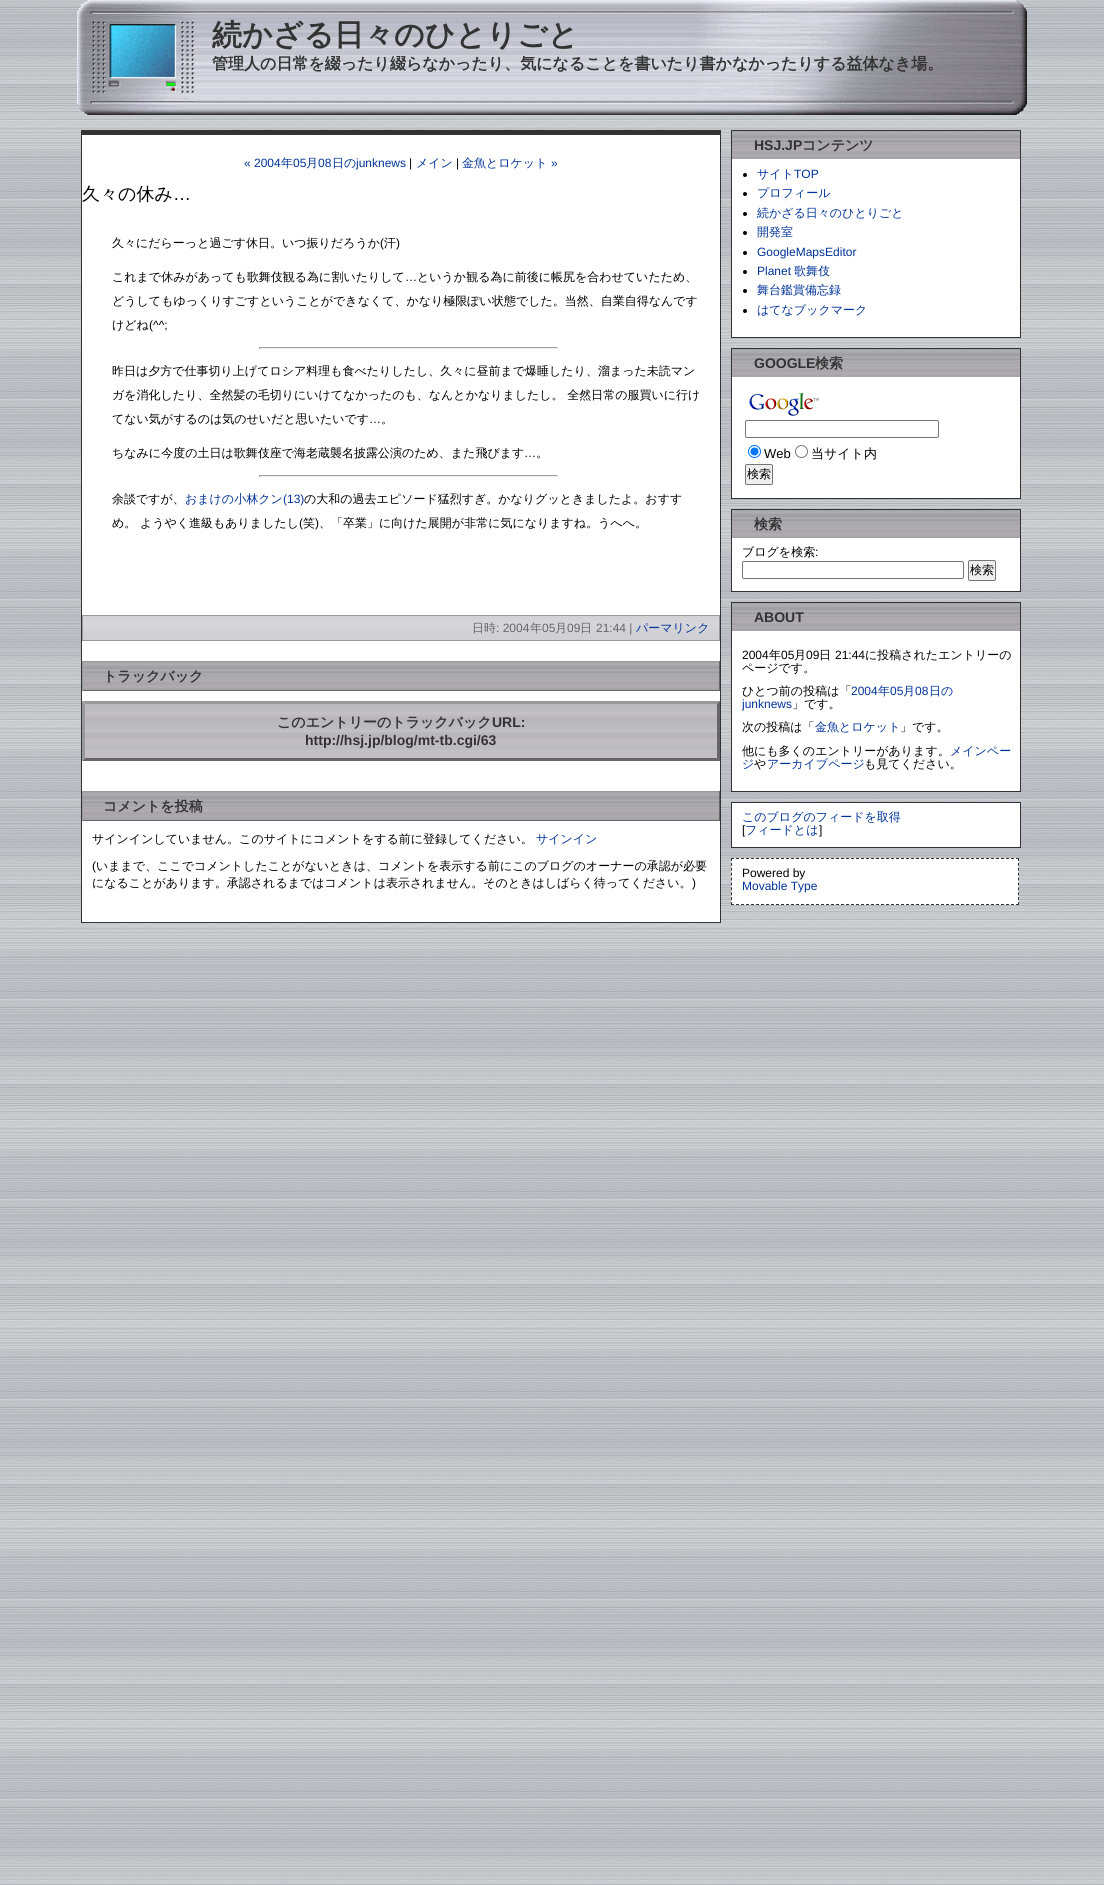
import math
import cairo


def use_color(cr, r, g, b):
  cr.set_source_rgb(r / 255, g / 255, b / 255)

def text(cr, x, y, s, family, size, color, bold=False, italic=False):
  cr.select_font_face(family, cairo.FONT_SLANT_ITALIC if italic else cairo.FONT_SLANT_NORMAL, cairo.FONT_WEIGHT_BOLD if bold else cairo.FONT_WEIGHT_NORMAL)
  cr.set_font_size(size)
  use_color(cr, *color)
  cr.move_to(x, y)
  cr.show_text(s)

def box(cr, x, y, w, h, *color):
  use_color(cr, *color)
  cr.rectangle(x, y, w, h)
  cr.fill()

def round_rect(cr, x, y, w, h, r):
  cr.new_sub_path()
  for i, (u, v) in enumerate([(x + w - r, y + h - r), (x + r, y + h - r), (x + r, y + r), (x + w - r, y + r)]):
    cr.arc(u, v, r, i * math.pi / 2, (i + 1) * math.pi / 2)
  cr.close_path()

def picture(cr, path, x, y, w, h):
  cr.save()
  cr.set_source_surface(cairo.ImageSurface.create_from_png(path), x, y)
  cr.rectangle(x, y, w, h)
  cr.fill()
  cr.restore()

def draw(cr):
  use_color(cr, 255, 255, 255)
  cr.paint()
  picture(cr, "img_01.png", 0, 0, 1104, 1885)
  picture(cr, "img_02.png", 77, 0, 950, 115)
  box(cr, 82, 135, 638, 787, 255, 255, 255)
  box(cr, 81, 130, 640, 5, 51, 51, 51)
  box(cr, 720, 130, 1, 793, 51, 51, 51)
  box(cr, 81, 922, 640, 1, 51, 51, 51)
  box(cr, 81, 130, 1, 793, 51, 51, 51)
  box(cr, 259, 347, 299, 1, 159, 159, 159)
  box(cr, 557, 347, 1, 2, 238, 238, 238)
  box(cr, 259, 348, 299, 1, 238, 238, 238)
  box(cr, 259, 347, 1, 2, 159, 159, 159)
  box(cr, 259, 475, 299, 1, 159, 159, 159)
  box(cr, 557, 475, 1, 2, 238, 238, 238)
  box(cr, 259, 476, 299, 1, 238, 238, 238)
  box(cr, 259, 475, 1, 2, 159, 159, 159)
  picture(cr, "img_03.png", 83, 616, 636, 24)
  cr.rectangle(82.5, 615.5, 637, 25)
  use_color(cr, 153, 153, 153)
  cr.set_line_width(1)
  cr.stroke()
  picture(cr, "img_04.png", 83, 662, 636, 28)
  box(cr, 82, 661, 638, 1, 153, 153, 153)
  box(cr, 719, 661, 1, 30, 102, 102, 102)
  box(cr, 82, 690, 638, 1, 102, 102, 102)
  box(cr, 82, 661, 1, 30, 153, 153, 153)
  picture(cr, "img_05.png", 85, 701, 635, 60)
  cr.new_path()
  cr.move_to(82, 701)
  cr.line_to(720, 701)
  cr.line_to(717, 704)
  cr.line_to(85, 704)
  cr.close_path()
  cr.fill()
  use_color(cr, 102, 102, 102)
  cr.new_path()
  cr.move_to(720, 701)
  cr.line_to(720, 761)
  cr.line_to(717, 758)
  cr.line_to(717, 704)
  cr.close_path()
  cr.fill()
  cr.new_path()
  cr.move_to(720, 761)
  cr.line_to(82, 761)
  cr.line_to(85, 758)
  cr.line_to(717, 758)
  cr.close_path()
  cr.fill()
  use_color(cr, 153, 153, 153)
  cr.new_path()
  cr.move_to(82, 761)
  cr.line_to(82, 701)
  cr.line_to(85, 704)
  cr.line_to(85, 758)
  cr.close_path()
  cr.fill()
  picture(cr, "img_04.png", 83, 792, 636, 28)
  box(cr, 82, 791, 638, 1, 153, 153, 153)
  box(cr, 719, 791, 1, 30, 102, 102, 102)
  box(cr, 82, 820, 638, 1, 102, 102, 102)
  box(cr, 82, 791, 1, 30, 153, 153, 153)
  box(cr, 732, 159, 288, 178, 255, 255, 255)
  cr.rectangle(731.5, 130.5, 289, 207)
  use_color(cr, 51, 51, 51)
  cr.stroke()
  picture(cr, "img_06.png", 732, 131, 288, 28)
  use_color(cr, 0, 0, 0)
  cr.arc(745, 175, 2, 0, 2 * math.pi)
  cr.fill()
  cr.arc(745, 194, 2, 0, 2 * math.pi)
  cr.fill()
  cr.arc(745, 214, 2, 0, 2 * math.pi)
  cr.fill()
  cr.arc(745, 233, 2, 0, 2 * math.pi)
  cr.fill()
  cr.arc(745, 253, 2, 0, 2 * math.pi)
  cr.fill()
  cr.arc(745, 272, 2, 0, 2 * math.pi)
  cr.fill()
  cr.arc(745, 291, 2, 0, 2 * math.pi)
  cr.fill()
  cr.arc(745, 311, 2, 0, 2 * math.pi)
  cr.fill()
  box(cr, 732, 377, 288, 121, 255, 255, 255)
  cr.rectangle(731.5, 348.5, 289, 150)
  use_color(cr, 51, 51, 51)
  cr.stroke()
  picture(cr, "img_06.png", 732, 349, 288, 28)
  picture(cr, "img_07.png", 749, 393, 70, 23)
  round_rect(cr, 745.5, 420.5, 193, 17, 1.5)
  use_color(cr, 118, 118, 118)
  cr.stroke()
  cr.arc(754.5, 451.5, 6, 0, 2 * math.pi)
  use_color(cr, 0, 117, 255)
  cr.stroke()
  cr.arc(754.5, 451.5, 4, 0, 2 * math.pi)
  cr.fill()
  cr.arc(801.5, 451.5, 6, 0, 2 * math.pi)
  use_color(cr, 118, 118, 118)
  cr.stroke()
  use_color(cr, 239, 239, 239)
  round_rect(cr, 745.5, 464.5, 27, 20, 1.5)
  cr.fill_preserve()
  use_color(cr, 118, 118, 118)
  cr.stroke()
  box(cr, 732, 538, 288, 53, 255, 255, 255)
  cr.rectangle(731.5, 509.5, 289, 82)
  use_color(cr, 51, 51, 51)
  cr.stroke()
  picture(cr, "img_06.png", 732, 510, 288, 28)
  round_rect(cr, 742.5, 561.5, 221, 17, 1.5)
  use_color(cr, 118, 118, 118)
  cr.stroke()
  use_color(cr, 239, 239, 239)
  round_rect(cr, 968.5, 560.5, 27, 20, 1.5)
  cr.fill_preserve()
  use_color(cr, 118, 118, 118)
  cr.stroke()
  box(cr, 732, 631, 288, 160, 255, 255, 255)
  cr.rectangle(731.5, 602.5, 289, 189)
  use_color(cr, 51, 51, 51)
  cr.stroke()
  picture(cr, "img_06.png", 732, 603, 288, 28)
  use_color(cr, 255, 255, 255)
  cr.rectangle(731.5, 802.5, 289, 45)
  cr.fill_preserve()
  use_color(cr, 51, 51, 51)
  cr.stroke()
  box(cr, 731, 858, 288, 47, 255, 255, 255)
  cr.new_path()
  cr.move_to(731, 858.5)
  cr.line_to(1019, 858.5)
  use_color(cr, 51, 51, 51)
  cr.set_dash([3, 2])
  cr.stroke()
  cr.new_path()
  cr.move_to(1018.5, 858)
  cr.line_to(1018.5, 905)
  cr.set_dash([3, 1.89])
  cr.stroke()
  cr.new_path()
  cr.move_to(731, 904.5)
  cr.line_to(1019, 904.5)
  cr.set_dash([3, 2])
  cr.stroke()
  cr.new_path()
  cr.move_to(731.5, 858)
  cr.line_to(731.5, 905)
  cr.set_dash([3, 1.89])
  cr.stroke()
  text(cr, 212, 45, "続かざる日々のひとりごと", "WenQuanYi Zen Hei", 30, (51, 51, 51), bold=True)
  text(cr, 212, 69, "管理人の日常を綴ったり綴らなかったり、気になることを書いたり書かなかったりする益体なき場。", "WenQuanYi Zen Hei", 16, (51, 51, 51), bold=True)
  text(cr, 244, 167, "« 2004", "Liberation Sans", 12, (0, 51, 153))
  text(cr, 281, 167, "年", "WenQuanYi Zen Hei Medium", 12, (0, 51, 153))
  text(cr, 293, 167, "05", "Liberation Sans", 12, (0, 51, 153))
  text(cr, 306, 167, "月", "WenQuanYi Zen Hei Medium", 12, (0, 51, 153))
  text(cr, 318, 167, "08", "Liberation Sans", 12, (0, 51, 153))
  text(cr, 332, 167, "日の", "WenQuanYi Zen Hei Medium", 12, (0, 51, 153))
  text(cr, 356, 167, "junknews", "Liberation Sans", 12, (0, 51, 153))
  text(cr, 409, 167, "|", "Liberation Sans", 12, (0, 0, 0))
  text(cr, 416, 167, "メイン", "WenQuanYi Zen Hei Medium", 12, (0, 51, 153))
  text(cr, 456, 167, "|", "Liberation Sans", 12, (0, 0, 0))
  text(cr, 462, 167, "金魚とロケット", "WenQuanYi Zen Hei Medium", 12, (0, 51, 153))
  text(cr, 551, 167, "»", "Liberation Sans", 12, (0, 51, 153))
  text(cr, 82, 200, "久々の休み", "WenQuanYi Zen Hei Medium", 18, (0, 0, 0))
  text(cr, 173, 200, "…", "Liberation Sans", 18, (0, 0, 0))
  text(cr, 112, 247, "久々にだらーっと過ごす休日。いつ振りだろうか", "WenQuanYi Zen Hei Medium", 12, (0, 0, 0))
  text(cr, 380, 247, "(", "Liberation Sans", 12, (0, 0, 0))
  text(cr, 384, 247, "汗", "WenQuanYi Zen Hei Medium", 12, (0, 0, 0))
  text(cr, 396, 247, ")", "Liberation Sans", 12, (0, 0, 0))
  text(cr, 112, 281, "これまで休みがあっても歌舞伎観る為に割いたりして", "WenQuanYi Zen Hei Medium", 12, (0, 0, 0))
  text(cr, 405, 281, "…", "Liberation Sans", 12, (0, 0, 0))
  text(cr, 417, 281, "というか観る為に前後に帳尻を合わせていたため、", "WenQuanYi Zen Hei Medium", 12, (0, 0, 0))
  text(cr, 112, 305, "どうしてもゆっくりすごすということができなくて、かなり極限ぽい状態でした。当然、自業自得なんです", "WenQuanYi Zen Hei Medium", 12, (0, 0, 0))
  text(cr, 112, 329, "けどね", "WenQuanYi Zen Hei Medium", 12, (0, 0, 0))
  text(cr, 149, 329, "(^^;", "Liberation Sans", 12, (0, 0, 0))
  text(cr, 112, 375, "昨日は夕方で仕事切り上げてロシア料理も食べたりしたし、久々に昼前まで爆睡したり、溜まった未読マン", "WenQuanYi Zen Hei Medium", 12, (0, 0, 0))
  text(cr, 112, 399, "ガを消化したり、全然髪の毛切りにいけてなかったのも、なんとかなりましたし。 全然日常の服買いに行け", "WenQuanYi Zen Hei Medium", 12, (0, 0, 0))
  text(cr, 112, 423, "てない気がするのは気のせいだと思いたいです", "WenQuanYi Zen Hei Medium", 12, (0, 0, 0))
  text(cr, 369, 423, "…", "Liberation Sans", 12, (0, 0, 0))
  text(cr, 381, 423, "。", "WenQuanYi Zen Hei Medium", 12, (0, 0, 0))
  text(cr, 112, 457, "ちなみに今度の土日は歌舞伎座で海老蔵襲名披露公演のため、また飛びます", "WenQuanYi Zen Hei Medium", 12, (0, 0, 0))
  text(cr, 524, 457, "…", "Liberation Sans", 12, (0, 0, 0))
  text(cr, 536, 457, "。", "WenQuanYi Zen Hei Medium", 12, (0, 0, 0))
  text(cr, 112, 503, "余談ですが、", "WenQuanYi Zen Hei Medium", 12, (0, 0, 0))
  text(cr, 185, 503, "おまけの小林クン", "WenQuanYi Zen Hei Medium", 12, (0, 51, 153))
  text(cr, 283, 503, "(13)", "Liberation Sans", 12, (0, 51, 153))
  text(cr, 304, 503, "の大和の過去エピソード猛烈すぎ。かなりグッときましたよ。おすす", "WenQuanYi Zen Hei Medium", 12, (0, 0, 0))
  text(cr, 112, 527, "め。 ようやく進級もありましたし", "WenQuanYi Zen Hei Medium", 12, (0, 0, 0))
  text(cr, 299, 527, "(", "Liberation Sans", 12, (0, 0, 0))
  text(cr, 303, 527, "笑", "WenQuanYi Zen Hei Medium", 12, (0, 0, 0))
  text(cr, 315, 527, ")", "Liberation Sans", 12, (0, 0, 0))
  text(cr, 319, 527, "、「卒業」に向けた展開が非常に気になりますね。うへへ。", "WenQuanYi Zen Hei Medium", 12, (0, 0, 0))
  text(cr, 472, 632, "日時", "WenQuanYi Zen Hei Medium", 12, (102, 102, 102))
  text(cr, 496, 632, ": 2004", "Liberation Sans", 12, (102, 102, 102))
  text(cr, 530, 632, "年", "WenQuanYi Zen Hei Medium", 12, (102, 102, 102))
  text(cr, 542, 632, "05", "Liberation Sans", 12, (102, 102, 102))
  text(cr, 555, 632, "月", "WenQuanYi Zen Hei Medium", 12, (102, 102, 102))
  text(cr, 567, 632, "09", "Liberation Sans", 12, (102, 102, 102))
  text(cr, 580, 632, "日", "WenQuanYi Zen Hei Medium", 12, (102, 102, 102))
  text(cr, 596, 632, "21:44 |", "Liberation Sans", 12, (102, 102, 102))
  text(cr, 636, 632, "パーマリンク", "WenQuanYi Zen Hei Medium", 12, (0, 51, 153))
  text(cr, 103, 681, "トラックバック", "WenQuanYi Zen Hei", 14, (51, 51, 51), bold=True)
  text(cr, 277, 727, "このエントリーのトラックバック", "WenQuanYi Zen Hei", 14, (51, 51, 51), bold=True)
  text(cr, 492, 727, "URL:", "Liberation Sans", 14, (51, 51, 51), bold=True)
  text(cr, 305, 745, "http://hsj.jp/blog/mt-tb.cgi/63", "Liberation Sans", 14, (51, 51, 51), bold=True)
  text(cr, 103, 811, "コメントを投稿", "WenQuanYi Zen Hei", 14, (51, 51, 51), bold=True)
  text(cr, 92, 843, "サインインしていません。このサイトにコメントをする前に登録してください。", "WenQuanYi Zen Hei Medium", 12, (0, 0, 0))
  text(cr, 536, 843, "サインイン", "WenQuanYi Zen Hei Medium", 12, (0, 51, 153))
  text(cr, 92, 870, "(", "Liberation Sans", 12, (0, 0, 0))
  text(cr, 96, 870, "いままで、ここでコメントしたことがないときは、コメントを表示する前にこのブログのオーナーの承認が必要", "WenQuanYi Zen Hei Medium", 12, (0, 0, 0))
  text(cr, 92, 887, "になることがあります。承認されるまではコメントは表示されません。そのときはしばらく待ってください。", "WenQuanYi Zen Hei Medium", 12, (0, 0, 0))
  text(cr, 692, 887, ")", "Liberation Sans", 12, (0, 0, 0))
  text(cr, 754, 150, "HSJ.JP", "Liberation Sans", 14, (51, 51, 51), bold=True)
  text(cr, 802, 150, "コンテンツ", "WenQuanYi Zen Hei", 14, (51, 51, 51), bold=True)
  text(cr, 757, 178, "サイト", "WenQuanYi Zen Hei Medium", 12, (0, 51, 153))
  text(cr, 794, 178, "TOP", "Liberation Sans", 12, (0, 51, 153))
  text(cr, 757, 197, "プロフィール", "WenQuanYi Zen Hei Medium", 12, (0, 51, 153))
  text(cr, 757, 217, "続かざる日々のひとりごと", "WenQuanYi Zen Hei Medium", 12, (0, 51, 153))
  text(cr, 757, 236, "開発室", "WenQuanYi Zen Hei Medium", 12, (0, 51, 153))
  text(cr, 757, 256, "GoogleMapsEditor", "Liberation Sans", 12, (0, 51, 153))
  text(cr, 757, 275, "Planet", "Liberation Sans", 12, (0, 51, 153))
  text(cr, 794, 275, "歌舞伎", "WenQuanYi Zen Hei Medium", 12, (0, 51, 153))
  text(cr, 757, 294, "舞台鑑賞備忘録", "WenQuanYi Zen Hei Medium", 12, (0, 51, 153))
  text(cr, 757, 314, "はてなブックマーク", "WenQuanYi Zen Hei Medium", 12, (0, 51, 153))
  text(cr, 754, 368, "GOOGLE", "Liberation Sans", 14, (51, 51, 51), bold=True)
  text(cr, 815, 368, "検索", "WenQuanYi Zen Hei", 14, (51, 51, 51), bold=True)
  text(cr, 764, 458, "Web", "Liberation Sans", 13, (0, 0, 0))
  text(cr, 811, 458, "当サイト内", "WenQuanYi Zen Hei Medium", 13, (0, 0, 0))
  text(cr, 747, 478, "検索", "WenQuanYi Zen Hei Medium", 12, (0, 0, 0))
  text(cr, 754, 529, "検索", "WenQuanYi Zen Hei", 14, (51, 51, 51), bold=True)
  text(cr, 742, 556, "ブログを検索", "WenQuanYi Zen Hei Medium", 12, (0, 0, 0))
  text(cr, 815, 556, ":", "Liberation Sans", 12, (0, 0, 0))
  text(cr, 970, 574, "検索", "WenQuanYi Zen Hei Medium", 12, (0, 0, 0))
  text(cr, 754, 622, "ABOUT", "Liberation Sans", 14, (51, 51, 51), bold=True)
  text(cr, 742, 659, "2004", "Liberation Sans", 12, (0, 0, 0))
  text(cr, 769, 659, "年", "WenQuanYi Zen Hei Medium", 12, (0, 0, 0))
  text(cr, 781, 659, "05", "Liberation Sans", 12, (0, 0, 0))
  text(cr, 794, 659, "月", "WenQuanYi Zen Hei Medium", 12, (0, 0, 0))
  text(cr, 806, 659, "09", "Liberation Sans", 12, (0, 0, 0))
  text(cr, 819, 659, "日", "WenQuanYi Zen Hei Medium", 12, (0, 0, 0))
  text(cr, 835, 659, "21:44", "Liberation Sans", 12, (0, 0, 0))
  text(cr, 865, 659, "に投稿されたエントリーの", "WenQuanYi Zen Hei Medium", 12, (0, 0, 0))
  text(cr, 742, 672, "ページです。", "WenQuanYi Zen Hei Medium", 12, (0, 0, 0))
  text(cr, 742, 695, "ひとつ前の投稿は「", "WenQuanYi Zen Hei Medium", 12, (0, 0, 0))
  text(cr, 851, 695, "2004", "Liberation Sans", 12, (0, 51, 153))
  text(cr, 878, 695, "年", "WenQuanYi Zen Hei Medium", 12, (0, 51, 153))
  text(cr, 890, 695, "05", "Liberation Sans", 12, (0, 51, 153))
  text(cr, 903, 695, "月", "WenQuanYi Zen Hei Medium", 12, (0, 51, 153))
  text(cr, 915, 695, "08", "Liberation Sans", 12, (0, 51, 153))
  text(cr, 929, 695, "日の", "WenQuanYi Zen Hei Medium", 12, (0, 51, 153))
  text(cr, 742, 708, "junknews", "Liberation Sans", 12, (0, 51, 153))
  text(cr, 792, 708, "」です。", "WenQuanYi Zen Hei Medium", 12, (0, 0, 0))
  text(cr, 742, 731, "次の投稿は「", "WenQuanYi Zen Hei Medium", 12, (0, 0, 0))
  text(cr, 815, 731, "金魚とロケット", "WenQuanYi Zen Hei Medium", 12, (0, 51, 153))
  text(cr, 900, 731, "」です。", "WenQuanYi Zen Hei Medium", 12, (0, 0, 0))
  text(cr, 742, 755, "他にも多くのエントリーがあります。", "WenQuanYi Zen Hei Medium", 12, (0, 0, 0))
  text(cr, 950, 755, "メインペー", "WenQuanYi Zen Hei Medium", 12, (0, 51, 153))
  text(cr, 742, 768, "ジ", "WenQuanYi Zen Hei Medium", 12, (0, 51, 153))
  text(cr, 754, 768, "や", "WenQuanYi Zen Hei Medium", 12, (0, 0, 0))
  text(cr, 767, 768, "アーカイブページ", "WenQuanYi Zen Hei Medium", 12, (0, 51, 153))
  text(cr, 864, 768, "も見てください。", "WenQuanYi Zen Hei Medium", 12, (0, 0, 0))
  text(cr, 742, 821, "このブログのフィードを取得", "WenQuanYi Zen Hei Medium", 12, (0, 51, 153))
  text(cr, 742, 834, "[", "Liberation Sans", 12, (0, 0, 0))
  text(cr, 745, 834, "フィードとは", "WenQuanYi Zen Hei Medium", 12, (0, 51, 153))
  text(cr, 819, 834, "]", "Liberation Sans", 12, (0, 0, 0))
  text(cr, 742, 877, "Powered by", "Liberation Sans", 12, (0, 0, 0))
  text(cr, 742, 890, "Movable Type", "Liberation Sans", 12, (0, 51, 153))


surface = cairo.ImageSurface(cairo.FORMAT_RGB24, 1104, 1885)
cr = cairo.Context(surface)
options = cairo.FontOptions()
options.set_hint_metrics(cairo.HINT_METRICS_OFF)
options.set_hint_style(cairo.HINT_STYLE_NONE)
cr.set_font_options(options)
cr.set_miter_limit(4)
draw(cr)
surface.write_to_png("out.png")
